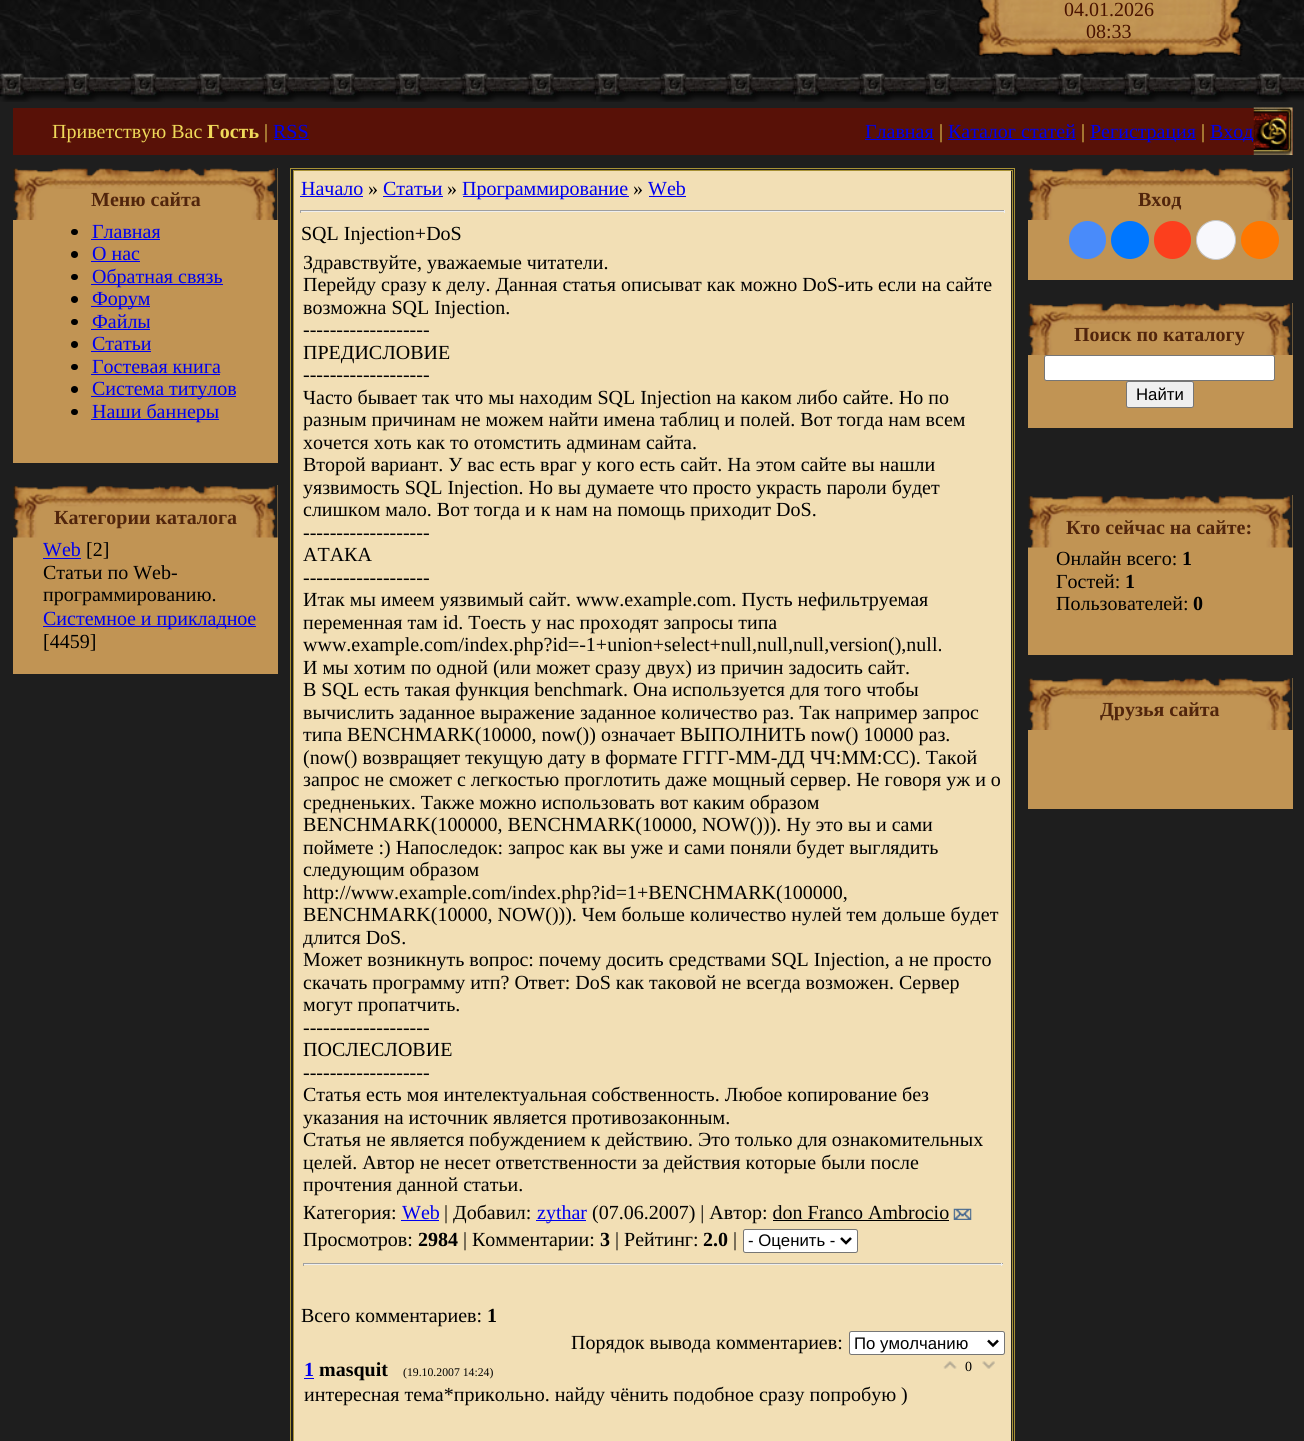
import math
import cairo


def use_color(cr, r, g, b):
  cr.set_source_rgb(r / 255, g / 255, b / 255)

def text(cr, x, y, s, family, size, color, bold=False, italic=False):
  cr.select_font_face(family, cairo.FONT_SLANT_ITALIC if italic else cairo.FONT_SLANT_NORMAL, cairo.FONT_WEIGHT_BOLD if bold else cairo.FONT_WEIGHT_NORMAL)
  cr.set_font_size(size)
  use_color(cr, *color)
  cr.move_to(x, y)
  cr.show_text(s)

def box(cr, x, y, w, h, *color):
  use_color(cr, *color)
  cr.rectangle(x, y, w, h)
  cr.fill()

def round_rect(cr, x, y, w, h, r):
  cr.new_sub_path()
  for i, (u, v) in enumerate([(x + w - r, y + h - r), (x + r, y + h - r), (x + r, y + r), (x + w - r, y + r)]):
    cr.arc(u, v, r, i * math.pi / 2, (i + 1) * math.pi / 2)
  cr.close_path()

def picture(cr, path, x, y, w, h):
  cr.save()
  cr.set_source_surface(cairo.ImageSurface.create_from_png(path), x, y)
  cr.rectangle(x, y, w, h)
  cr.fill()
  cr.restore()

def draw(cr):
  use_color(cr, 30, 30, 30)
  cr.paint()
  picture(cr, "img_01.png", 0, 0, 1304, 102)
  picture(cr, "img_02.png", 977, 0, 266, 57)
  box(cr, 13, 108, 1280, 47, 88, 17, 7)
  box(cr, 274, 139, 35, 1, 0, 0, 238)
  box(cr, 865, 139, 69, 1, 0, 0, 238)
  box(cr, 948, 139, 128, 1, 0, 0, 238)
  box(cr, 1090, 139, 106, 1, 0, 0, 238)
  box(cr, 1210, 139, 44, 1, 0, 0, 238)
  picture(cr, "img_03.png", 1253, 107, 40, 48)
  box(cr, 13, 168, 265, 295, 193, 148, 84)
  picture(cr, "img_04.png", 13, 168, 265, 52)
  use_color(cr, 0, 0, 0)
  round_rect(cr, 71, 229, 7, 6, 3)
  cr.fill()
  box(cr, 91, 239, 69, 1, 0, 0, 238)
  use_color(cr, 0, 0, 0)
  cr.arc(74.5, 254.5, 3.5, 0, 2 * math.pi)
  cr.fill()
  box(cr, 91, 261, 49, 1, 0, 0, 238)
  use_color(cr, 0, 0, 0)
  round_rect(cr, 71, 274, 7, 6, 3)
  cr.fill()
  box(cr, 91, 284, 132, 1, 0, 0, 238)
  use_color(cr, 0, 0, 0)
  cr.arc(74.5, 299.5, 3.5, 0, 2 * math.pi)
  cr.fill()
  box(cr, 91, 306, 59, 1, 0, 0, 238)
  use_color(cr, 0, 0, 0)
  round_rect(cr, 71, 319, 7, 6, 3)
  cr.fill()
  box(cr, 91, 329, 59, 1, 0, 0, 238)
  use_color(cr, 0, 0, 0)
  cr.arc(74.5, 344.5, 3.5, 0, 2 * math.pi)
  cr.fill()
  box(cr, 91, 351, 60, 1, 0, 0, 238)
  use_color(cr, 0, 0, 0)
  round_rect(cr, 71, 364, 7, 6, 3)
  cr.fill()
  box(cr, 91, 374, 129, 1, 0, 0, 238)
  use_color(cr, 0, 0, 0)
  cr.arc(74.5, 389.5, 3.5, 0, 2 * math.pi)
  cr.fill()
  box(cr, 91, 396, 145, 1, 0, 0, 238)
  use_color(cr, 0, 0, 0)
  round_rect(cr, 71, 409, 7, 6, 3)
  cr.fill()
  box(cr, 91, 419, 128, 1, 0, 0, 238)
  box(cr, 13, 485, 265, 189, 193, 148, 84)
  picture(cr, "img_05.png", 13, 485, 265, 53)
  box(cr, 43, 558, 38, 1, 0, 0, 238)
  box(cr, 43, 626, 213, 1, 0, 0, 238)
  cr.rectangle(290.5, 168.5, 724, 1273)
  use_color(cr, 168, 146, 54)
  cr.set_line_width(1)
  cr.stroke()
  cr.rectangle(293.5, 170.5, 719, 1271)
  cr.stroke()
  box(cr, 294, 171, 717, 1270, 242, 223, 181)
  box(cr, 300, 196, 63, 1, 0, 0, 238)
  box(cr, 383, 196, 60, 1, 0, 0, 238)
  box(cr, 463, 196, 166, 1, 0, 0, 238)
  box(cr, 649, 196, 37, 1, 0, 0, 238)
  box(cr, 300, 210, 705, 1, 159, 159, 159)
  box(cr, 1004, 210, 1, 3, 238, 238, 238)
  box(cr, 300, 211, 705, 1, 238, 238, 238)
  box(cr, 300, 210, 1, 3, 159, 159, 159)
  box(cr, 401, 1220, 38, 1, 0, 0, 238)
  box(cr, 536, 1220, 50, 1, 0, 0, 238)
  picture(cr, "img_06.png", 953, 1208, 19, 12)
  box(cr, 773, 1220, 176, 1, 0, 0, 0)
  use_color(cr, 255, 255, 255)
  round_rect(cr, 743.5, 1229.5, 114, 23, 2)
  cr.fill_preserve()
  use_color(cr, 118, 118, 118)
  cr.stroke()
  cr.new_path()
  cr.move_to(841, 1238)
  cr.line_to(846, 1243)
  cr.line_to(851, 1238)
  use_color(cr, 0, 0, 0)
  cr.set_line_width(2.5)
  cr.stroke()
  box(cr, 303, 1263, 700, 1, 159, 159, 159)
  box(cr, 1001, 1263, 1, 3, 238, 238, 238)
  box(cr, 303, 1264, 700, 1, 238, 238, 238)
  box(cr, 303, 1263, 1, 3, 159, 159, 159)
  use_color(cr, 255, 255, 255)
  round_rect(cr, 849.5, 1331.5, 155, 23, 2)
  cr.fill_preserve()
  use_color(cr, 118, 118, 118)
  cr.set_line_width(1)
  cr.stroke()
  cr.new_path()
  cr.move_to(988, 1340.5)
  cr.line_to(993, 1345.5)
  cr.line_to(998, 1340.5)
  use_color(cr, 0, 0, 0)
  cr.set_line_width(2.5)
  cr.stroke()
  box(cr, 304, 1378, 10, 1, 0, 0, 238)
  picture(cr, "img_07.png", 943, 1361, 14, 8)
  picture(cr, "img_08.png", 982, 1361, 13, 8)
  box(cr, 1028, 168, 265, 112, 193, 148, 84)
  picture(cr, "img_04.png", 1028, 168, 265, 52)
  use_color(cr, 73, 139, 250)
  round_rect(cr, 1069, 221, 37, 38, 18.5)
  cr.fill()
  use_color(cr, 0, 119, 255)
  cr.arc(1130, 240, 19, 0, 2 * math.pi)
  cr.fill()
  use_color(cr, 252, 63, 29)
  round_rect(cr, 1154, 221, 37, 38, 18.5)
  cr.fill()
  use_color(cr, 248, 248, 252)
  cr.arc(1216, 240, 19.5, 0, 2 * math.pi)
  cr.fill_preserve()
  use_color(cr, 196, 196, 196)
  cr.set_line_width(1)
  cr.stroke()
  use_color(cr, 255, 119, 0)
  cr.arc(1260, 240, 19, 0, 2 * math.pi)
  cr.fill()
  box(cr, 1028, 303, 265, 125, 193, 148, 84)
  picture(cr, "img_04.png", 1028, 303, 265, 52)
  use_color(cr, 255, 255, 255)
  round_rect(cr, 1044.5, 355.5, 230, 25, 2)
  cr.fill_preserve()
  use_color(cr, 118, 118, 118)
  cr.stroke()
  use_color(cr, 239, 239, 239)
  round_rect(cr, 1126.5, 381.5, 67, 26, 2)
  cr.fill_preserve()
  use_color(cr, 118, 118, 118)
  cr.stroke()
  box(cr, 1028, 495, 265, 160, 193, 148, 84)
  picture(cr, "img_09.png", 1028, 495, 265, 53)
  box(cr, 1028, 678, 265, 131, 193, 148, 84)
  picture(cr, "img_04.png", 1028, 678, 265, 52)
  text(cr, 1064, 16, "04.01.2026", "Liberation Serif", 20, (73, 19, 0))
  text(cr, 1086, 38, "08:33", "Liberation Serif", 20, (73, 19, 0))
  text(cr, 52, 138, "Приветствую Вас", "Liberation Serif", 20, (239, 217, 89))
  text(cr, 207, 138, "Гость", "Liberation Serif", 20, (239, 217, 89), bold=True)
  text(cr, 264, 138, "|", "Liberation Serif", 20, (239, 217, 89))
  text(cr, 273, 138, "RSS", "Liberation Serif", 20, (0, 0, 238))
  text(cr, 865, 138, "Главная", "Liberation Serif", 20, (0, 0, 238))
  text(cr, 939, 138, "|", "Liberation Serif", 20, (239, 217, 89))
  text(cr, 948, 138, "Каталог статей", "Liberation Serif", 20, (0, 0, 238))
  text(cr, 1081, 138, "|", "Liberation Serif", 20, (239, 217, 89))
  text(cr, 1090, 138, "Регистрация", "Liberation Serif", 20, (0, 0, 238))
  text(cr, 1201, 138, "|", "Liberation Serif", 20, (239, 217, 89))
  text(cr, 1210, 138, "Вход", "Liberation Serif", 20, (0, 0, 238))
  text(cr, 91, 206, "Меню сайта", "Liberation Serif", 20, (81, 37, 12), bold=True)
  text(cr, 92, 238, "Главная", "Liberation Serif", 20, (0, 0, 238))
  text(cr, 92, 260, "О нас", "Liberation Serif", 20, (0, 0, 238))
  text(cr, 92, 283, "Обратная связь", "Liberation Serif", 20, (0, 0, 238))
  text(cr, 92, 305, "Форум", "Liberation Serif", 20, (0, 0, 238))
  text(cr, 92, 328, "Файлы", "Liberation Serif", 20, (0, 0, 238))
  text(cr, 92, 350, "Статьи", "Liberation Serif", 20, (0, 0, 238))
  text(cr, 92, 373, "Гостевая книга", "Liberation Serif", 20, (0, 0, 238))
  text(cr, 92, 395, "Система титулов", "Liberation Serif", 20, (0, 0, 238))
  text(cr, 92, 418, "Наши баннеры", "Liberation Serif", 20, (0, 0, 238))
  text(cr, 54, 524, "Категории каталога", "Liberation Serif", 20, (81, 37, 12), bold=True)
  text(cr, 43, 556, "Web", "Liberation Serif", 20, (0, 0, 238))
  text(cr, 86, 556, "[2]", "Liberation Serif", 20, (0, 0, 0))
  text(cr, 43, 579, "Статьи по Web-", "Liberation Serif", 20, (0, 0, 0))
  text(cr, 43, 601, "программированию.", "Liberation Serif", 20, (0, 0, 0))
  text(cr, 43, 625, "Системное и прикладное", "Liberation Serif", 20, (0, 0, 238))
  text(cr, 43, 648, "[4459]", "Liberation Serif", 20, (0, 0, 0))
  text(cr, 301, 195, "Начало", "Liberation Serif", 20, (0, 0, 238))
  text(cr, 368, 195, "»", "Liberation Serif", 20, (0, 0, 0))
  text(cr, 383, 195, "Статьи", "Liberation Serif", 20, (0, 0, 238))
  text(cr, 447, 195, "»", "Liberation Serif", 20, (0, 0, 0))
  text(cr, 462, 195, "Программирование", "Liberation Serif", 20, (0, 0, 238))
  text(cr, 633, 195, "»", "Liberation Serif", 20, (0, 0, 0))
  text(cr, 648, 195, "Web", "Liberation Serif", 20, (0, 0, 238))
  text(cr, 301, 240, "SQL Injection+DoS", "Liberation Serif", 20, (0, 0, 0))
  text(cr, 303, 269, "Здравствуйте, уважаемые читатели.", "Liberation Serif", 20, (0, 0, 0))
  text(cr, 303, 291, "Перейду сразу к делу. Данная статья описыват как можно DoS-ить если на сайте", "Liberation Serif", 20, (0, 0, 0))
  text(cr, 303, 314, "возможна SQL Injection.", "Liberation Serif", 20, (0, 0, 0))
  text(cr, 303, 336, "-------------------", "Liberation Serif", 20, (0, 0, 0))
  text(cr, 303, 359, "ПРЕДИСЛОВИЕ", "Liberation Serif", 20, (0, 0, 0))
  text(cr, 303, 381, "-------------------", "Liberation Serif", 20, (0, 0, 0))
  text(cr, 303, 404, "Часто бывает так что мы находим SQL Injection на каком либо сайте. Но по", "Liberation Serif", 20, (0, 0, 0))
  text(cr, 303, 426, "разным причинам не можем найти имена таблиц и полей. Вот тогда нам всем", "Liberation Serif", 20, (0, 0, 0))
  text(cr, 303, 449, "хочется хоть как то отомстить админам сайта.", "Liberation Serif", 20, (0, 0, 0))
  text(cr, 303, 471, "Второй вариант. У вас есть враг у кого есть сайт. На этом сайте вы нашли", "Liberation Serif", 20, (0, 0, 0))
  text(cr, 303, 494, "уязвимость SQL Injection. Но вы думаете что просто украсть пароли будет", "Liberation Serif", 20, (0, 0, 0))
  text(cr, 303, 516, "слишком мало. Вот тогда и к нам на помощь приходит DoS.", "Liberation Serif", 20, (0, 0, 0))
  text(cr, 303, 539, "-------------------", "Liberation Serif", 20, (0, 0, 0))
  text(cr, 303, 561, "АТАКА", "Liberation Serif", 20, (0, 0, 0))
  text(cr, 303, 584, "-------------------", "Liberation Serif", 20, (0, 0, 0))
  text(cr, 303, 606, "Итак мы имеем уязвимый сайт. www.example.com. Пусть нефильтруемая", "Liberation Serif", 20, (0, 0, 0))
  text(cr, 303, 629, "переменная там id. Тоесть у нас проходят запросы типа", "Liberation Serif", 20, (0, 0, 0))
  text(cr, 303, 651, "www.example.com/index.php?id=-1+union+select+null,null,null,version(),null.", "Liberation Serif", 20, (0, 0, 0))
  text(cr, 303, 674, "И мы хотим по одной (или может сразу двух) из причин задосить сайт.", "Liberation Serif", 20, (0, 0, 0))
  text(cr, 303, 696, "В SQL есть такая функция benchmark. Она используется для того чтобы", "Liberation Serif", 20, (0, 0, 0))
  text(cr, 303, 719, "вычислить заданное выражение заданное количество раз. Так например запрос", "Liberation Serif", 20, (0, 0, 0))
  text(cr, 303, 741, "типа BENCHMARK(10000, now()) означает ВЫПОЛНИТЬ now() 10000 раз.", "Liberation Serif", 20, (0, 0, 0))
  text(cr, 303, 764, "(now() возвращяет текущую дату в формате ГГГГ-ММ-ДД ЧЧ:ММ:СС). Такой", "Liberation Serif", 20, (0, 0, 0))
  text(cr, 303, 786, "запрос не сможет с легкостью проглотить даже мощный сервер. Не говоря уж и о", "Liberation Serif", 20, (0, 0, 0))
  text(cr, 303, 809, "средненьких. Также можно использовать вот каким образом", "Liberation Serif", 20, (0, 0, 0))
  text(cr, 303, 831, "BENCHMARK(100000, BENCHMARK(10000, NOW())). Ну это вы и сами", "Liberation Serif", 20, (0, 0, 0))
  text(cr, 303, 854, "поймете :) Напоследок: запрос как вы уже и сами поняли будет выглядить", "Liberation Serif", 20, (0, 0, 0))
  text(cr, 303, 876, "следующим образом", "Liberation Serif", 20, (0, 0, 0))
  text(cr, 303, 899, "http://www.example.com/index.php?id=1+BENCHMARK(100000,", "Liberation Serif", 20, (0, 0, 0))
  text(cr, 303, 921, "BENCHMARK(10000, NOW())). Чем больше количество нулей тем дольше будет", "Liberation Serif", 20, (0, 0, 0))
  text(cr, 303, 944, "длится DoS.", "Liberation Serif", 20, (0, 0, 0))
  text(cr, 303, 966, "Может возникнуть вопрос: почему досить средствами SQL Injection, а не просто", "Liberation Serif", 20, (0, 0, 0))
  text(cr, 303, 989, "скачать программу итп? Ответ: DoS как таковой не всегда возможен. Сервер", "Liberation Serif", 20, (0, 0, 0))
  text(cr, 303, 1011, "могут пропатчить.", "Liberation Serif", 20, (0, 0, 0))
  text(cr, 303, 1034, "-------------------", "Liberation Serif", 20, (0, 0, 0))
  text(cr, 303, 1056, "ПОСЛЕСЛОВИЕ", "Liberation Serif", 20, (0, 0, 0))
  text(cr, 303, 1079, "-------------------", "Liberation Serif", 20, (0, 0, 0))
  text(cr, 303, 1101, "Статья есть моя интелектуальная собственность. Любое копирование без", "Liberation Serif", 20, (0, 0, 0))
  text(cr, 303, 1124, "указания на источник является противозаконным.", "Liberation Serif", 20, (0, 0, 0))
  text(cr, 303, 1146, "Статья не является побуждением к действию. Это только для ознакомительных", "Liberation Serif", 20, (0, 0, 0))
  text(cr, 303, 1169, "целей. Автор не несет ответственности за действия которые были после", "Liberation Serif", 20, (0, 0, 0))
  text(cr, 303, 1191, "прочтения данной статьи.", "Liberation Serif", 20, (0, 0, 0))
  text(cr, 303, 1219, "Категория:", "Liberation Serif", 20, (0, 0, 0))
  text(cr, 402, 1219, "Web", "Liberation Serif", 20, (0, 0, 238))
  text(cr, 444, 1219, "| Добавил:", "Liberation Serif", 20, (0, 0, 0))
  text(cr, 537, 1219, "zythar", "Liberation Serif", 20, (0, 0, 238))
  text(cr, 592, 1219, "(07.06.2007) | Автор: don Franco Ambrocio", "Liberation Serif", 20, (0, 0, 0))
  text(cr, 303, 1246, "Просмотров:", "Liberation Serif", 20, (0, 0, 0))
  text(cr, 418, 1246, "2984", "Liberation Serif", 20, (0, 0, 0), bold=True)
  text(cr, 463, 1246, "| Комментарии:", "Liberation Serif", 20, (0, 0, 0))
  text(cr, 600, 1246, "3", "Liberation Serif", 20, (0, 0, 0), bold=True)
  text(cr, 615, 1246, "| Рейтинг:", "Liberation Serif", 20, (0, 0, 0))
  text(cr, 703, 1246, "2.0", "Liberation Serif", 20, (0, 0, 0), bold=True)
  text(cr, 733, 1246, "|", "Liberation Serif", 20, (0, 0, 0))
  text(cr, 748, 1246, "- Оценить -", "Liberation Sans", 16.75, (0, 0, 0))
  text(cr, 301, 1322, "Всего комментариев:", "Liberation Serif", 20, (0, 0, 0))
  text(cr, 487, 1322, "1", "Liberation Serif", 20, (0, 0, 0), bold=True)
  text(cr, 571, 1349, "Порядок вывода комментариев:", "Liberation Serif", 20, (0, 0, 0))
  text(cr, 854, 1349, "По умолчанию", "Liberation Sans", 16.75, (0, 0, 0))
  text(cr, 304, 1376, "1", "Liberation Serif", 20, (0, 0, 238), bold=True)
  text(cr, 319, 1376, "masquit", "Liberation Serif", 20, (0, 0, 0), bold=True)
  text(cr, 403, 1376, "(19.10.2007 14:24)", "Liberation Serif", 11.75, (0, 0, 0))
  text(cr, 965, 1371, "0", "Liberation Serif", 14, (0, 0, 0))
  text(cr, 304, 1401, "интересная тема*прикольно. найду чёнить подобное сразу попробую )", "Liberation Serif", 20, (0, 0, 0))
  text(cr, 1138, 206, "Вход", "Liberation Serif", 20, (81, 37, 12), bold=True)
  text(cr, 1074, 341, "Поиск по каталогу", "Liberation Serif", 20, (81, 37, 12), bold=True)
  text(cr, 1136, 400, "Найти", "Liberation Sans", 16.75, (0, 0, 0))
  text(cr, 1066, 534, "Кто сейчас на сайте:", "Liberation Serif", 20, (81, 37, 12), bold=True)
  text(cr, 1056, 565, "Онлайн всего:", "Liberation Serif", 20, (0, 0, 0))
  text(cr, 1182, 565, "1", "Liberation Serif", 20, (0, 0, 0), bold=True)
  text(cr, 1056, 588, "Гостей:", "Liberation Serif", 20, (0, 0, 0))
  text(cr, 1125, 588, "1", "Liberation Serif", 20, (0, 0, 0), bold=True)
  text(cr, 1056, 610, "Пользователей:", "Liberation Serif", 20, (0, 0, 0))
  text(cr, 1193, 610, "0", "Liberation Serif", 20, (0, 0, 0), bold=True)
  text(cr, 1100, 716, "Друзья сайта", "Liberation Serif", 20, (81, 37, 12), bold=True)


surface = cairo.ImageSurface(cairo.FORMAT_RGB24, 1304, 1441)
cr = cairo.Context(surface)
options = cairo.FontOptions()
options.set_hint_metrics(cairo.HINT_METRICS_OFF)
options.set_hint_style(cairo.HINT_STYLE_NONE)
cr.set_font_options(options)
cr.set_miter_limit(4)
draw(cr)
surface.write_to_png("out.png")
